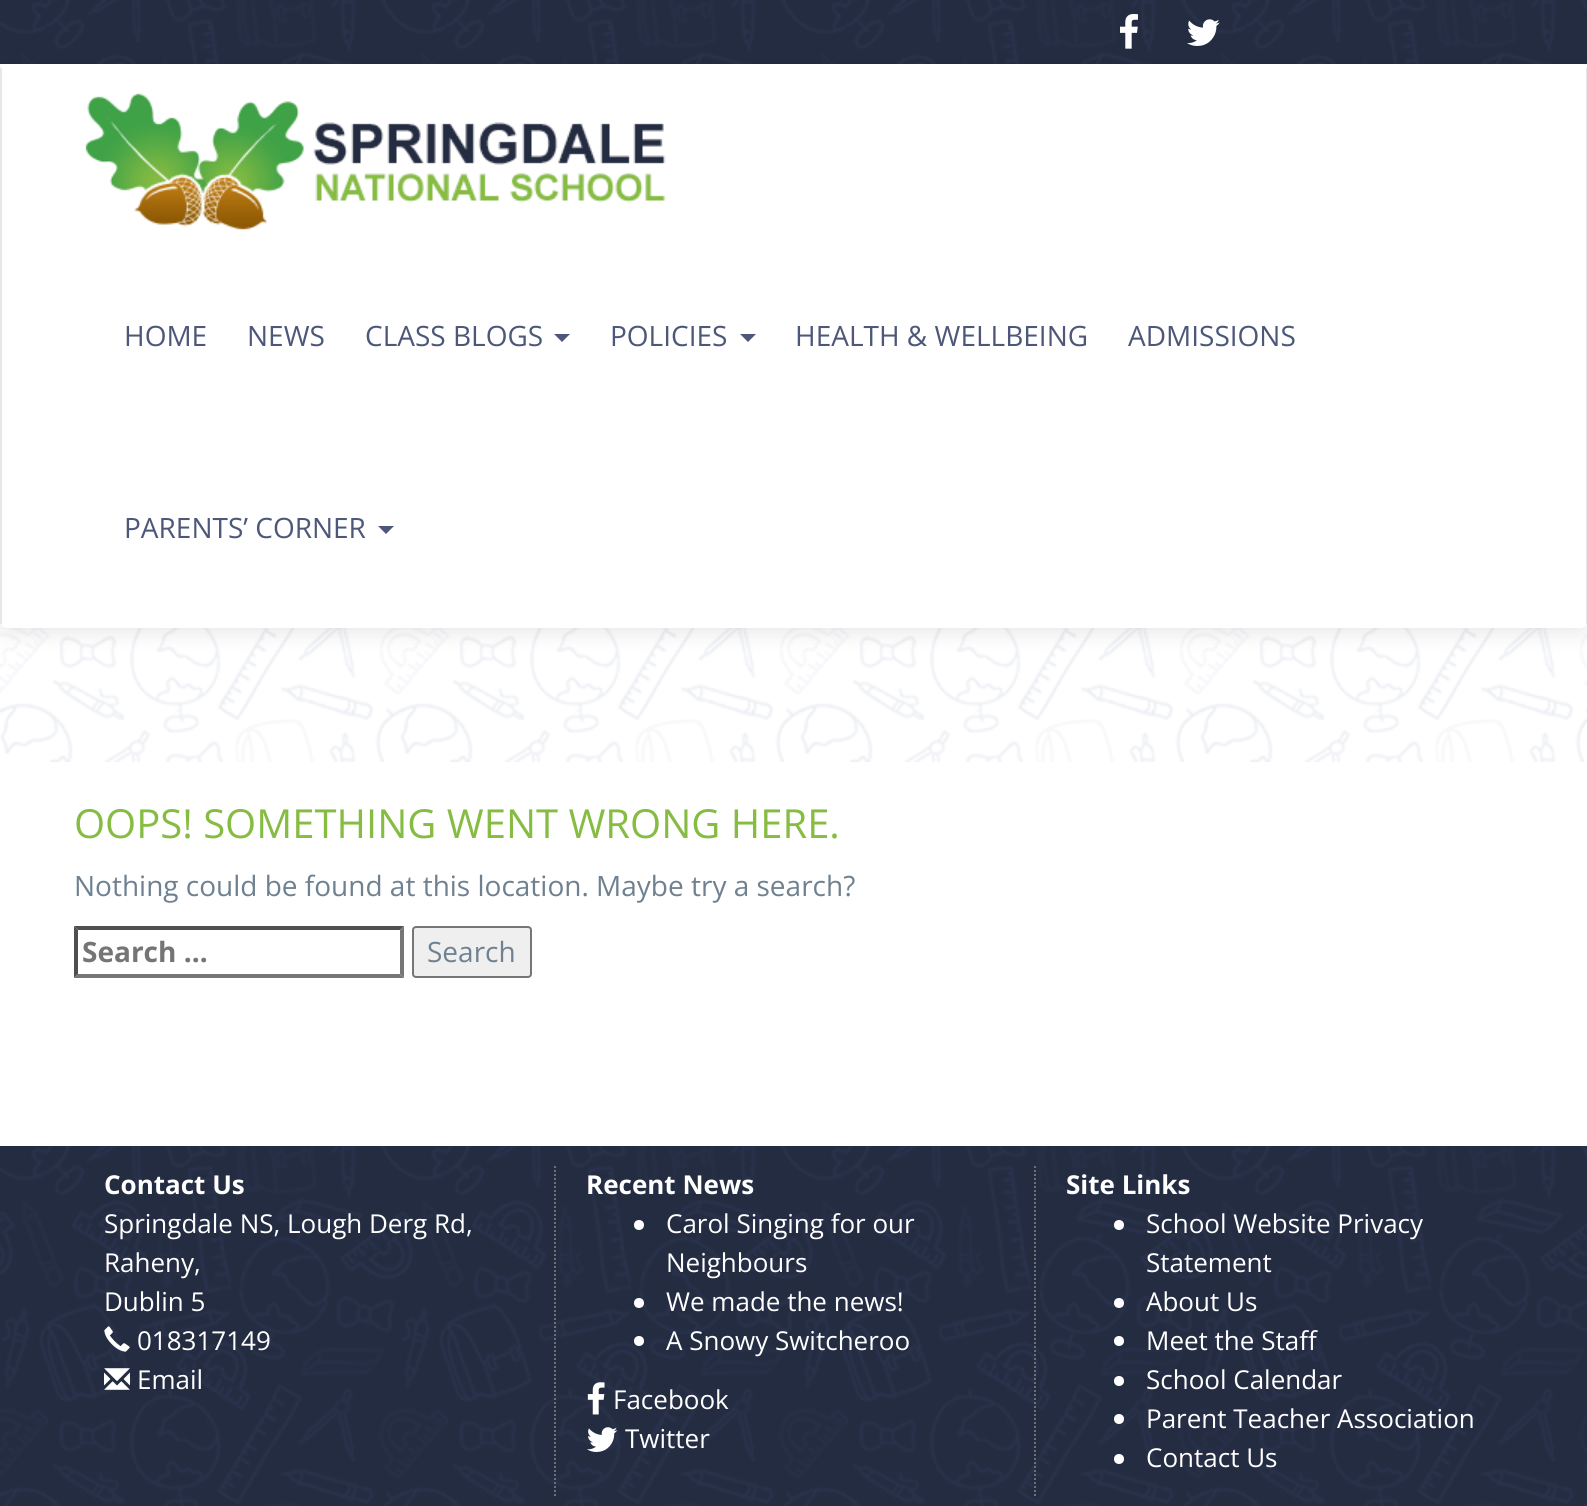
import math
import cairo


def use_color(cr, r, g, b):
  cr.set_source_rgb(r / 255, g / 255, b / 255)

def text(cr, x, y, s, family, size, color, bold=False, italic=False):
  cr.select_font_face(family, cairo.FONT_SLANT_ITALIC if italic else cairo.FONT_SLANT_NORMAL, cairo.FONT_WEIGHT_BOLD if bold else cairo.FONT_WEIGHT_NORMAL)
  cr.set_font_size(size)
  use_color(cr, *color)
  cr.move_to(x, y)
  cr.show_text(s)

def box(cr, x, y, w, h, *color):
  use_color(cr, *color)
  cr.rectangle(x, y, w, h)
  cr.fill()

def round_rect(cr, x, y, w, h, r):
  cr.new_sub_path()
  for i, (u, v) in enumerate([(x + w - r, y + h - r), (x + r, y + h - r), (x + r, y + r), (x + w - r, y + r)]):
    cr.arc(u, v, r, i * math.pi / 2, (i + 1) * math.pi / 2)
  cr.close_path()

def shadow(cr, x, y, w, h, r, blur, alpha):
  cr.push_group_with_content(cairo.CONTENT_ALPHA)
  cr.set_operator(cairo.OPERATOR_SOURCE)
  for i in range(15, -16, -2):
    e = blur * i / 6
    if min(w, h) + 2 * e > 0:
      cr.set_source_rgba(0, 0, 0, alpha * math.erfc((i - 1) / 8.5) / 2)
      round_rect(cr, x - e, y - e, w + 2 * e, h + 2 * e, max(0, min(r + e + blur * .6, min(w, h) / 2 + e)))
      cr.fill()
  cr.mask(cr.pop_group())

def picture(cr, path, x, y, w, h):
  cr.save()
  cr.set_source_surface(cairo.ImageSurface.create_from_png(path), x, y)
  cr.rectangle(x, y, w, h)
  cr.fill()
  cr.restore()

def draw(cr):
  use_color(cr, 255, 255, 255)
  cr.paint()
  picture(cr, "img_01.png", 0, 0, 1587, 64)
  picture(cr, "img_02.png", 1120, 14, 18, 35)
  picture(cr, "img_03.png", 1187, 19, 33, 27)
  picture(cr, "img_05.png", 0, 628, 1587, 134)
  use_color(cr, 0, 0, 0)
  shadow(cr, 2, 72, 1584, 560, 6, 11, 0.1)
  use_color(cr, 255, 255, 255)
  round_rect(cr, 0, 64, 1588, 564, 8)
  cr.fill()
  box(cr, 1586, 68, 1, 556, 231, 231, 231)
  box(cr, 0, 68, 2, 556, 231, 231, 231)
  picture(cr, "img_04.png", 85, 93, 581, 137)
  use_color(cr, 77, 87, 122)
  cr.new_path()
  cr.move_to(554, 334)
  cr.line_to(570, 334)
  cr.line_to(562, 342)
  cr.close_path()
  cr.fill()
  cr.new_path()
  cr.move_to(740, 334)
  cr.line_to(756, 334)
  cr.line_to(748, 342)
  cr.close_path()
  cr.fill()
  cr.new_path()
  cr.move_to(378, 526)
  cr.line_to(394, 526)
  cr.line_to(386, 534)
  cr.close_path()
  cr.fill()
  use_color(cr, 79, 79, 79)
  cr.new_path()
  cr.move_to(74, 926)
  cr.line_to(404, 926)
  cr.line_to(400, 930)
  cr.line_to(78, 930)
  cr.close_path()
  cr.fill()
  use_color(cr, 118, 118, 118)
  cr.new_path()
  cr.move_to(404, 926)
  cr.line_to(404, 978)
  cr.line_to(400, 974)
  cr.line_to(400, 930)
  cr.close_path()
  cr.fill()
  cr.new_path()
  cr.move_to(404, 978)
  cr.line_to(74, 978)
  cr.line_to(78, 974)
  cr.line_to(400, 974)
  cr.close_path()
  cr.fill()
  use_color(cr, 79, 79, 79)
  cr.new_path()
  cr.move_to(74, 978)
  cr.line_to(74, 926)
  cr.line_to(78, 930)
  cr.line_to(78, 974)
  cr.close_path()
  cr.fill()
  use_color(cr, 239, 239, 239)
  round_rect(cr, 413, 927, 118, 50, 3)
  cr.fill_preserve()
  use_color(cr, 118, 118, 118)
  cr.stroke()
  picture(cr, "img_06.png", 0, 1146, 1587, 360)
  picture(cr, "img_07.png", 104, 1326, 26, 26)
  picture(cr, "img_08.png", 104, 1368, 26, 22)
  cr.new_path()
  cr.move_to(555, 1166)
  cr.line_to(555, 1498)
  use_color(cr, 112, 112, 112)
  cr.set_dash([2, 2])
  cr.stroke()
  use_color(cr, 255, 255, 255)
  cr.arc(639, 1225, 5, 0, 2 * math.pi)
  cr.fill()
  cr.arc(639, 1303, 5, 0, 2 * math.pi)
  cr.fill()
  cr.arc(639, 1341, 5, 0, 2 * math.pi)
  cr.fill()
  picture(cr, "img_09.png", 587, 1382, 18, 33)
  picture(cr, "img_10.png", 587, 1427, 31, 25)
  cr.new_path()
  cr.move_to(1035, 1166)
  cr.line_to(1035, 1498)
  use_color(cr, 112, 112, 112)
  cr.stroke()
  use_color(cr, 255, 255, 255)
  cr.arc(1119, 1225, 5, 0, 2 * math.pi)
  cr.fill()
  cr.arc(1119, 1303, 5, 0, 2 * math.pi)
  cr.fill()
  cr.arc(1119, 1341, 5, 0, 2 * math.pi)
  cr.fill()
  cr.arc(1119, 1381, 5, 0, 2 * math.pi)
  cr.fill()
  cr.arc(1119, 1419, 5, 0, 2 * math.pi)
  cr.fill()
  cr.arc(1119, 1459, 5, 0, 2 * math.pi)
  cr.fill()
  text(cr, 124, 346, "HOME", "Open Sans", 28, (77, 87, 122))
  text(cr, 247, 346, "NEWS", "Open Sans", 28, (77, 87, 122))
  text(cr, 365, 346, "CLASS BLOGS", "Open Sans", 28, (77, 87, 122))
  text(cr, 610, 346, "POLICIES", "Open Sans", 28, (77, 87, 122))
  text(cr, 795, 346, "HEALTH & WELLBEING", "Open Sans", 28, (77, 87, 122))
  text(cr, 1128, 346, "ADMISSIONS", "Open Sans", 28, (77, 87, 122))
  text(cr, 124, 538, "PARENTS’ CORNER", "Open Sans", 28, (77, 87, 122))
  text(cr, 74, 838, "OOPS! SOMETHING WENT WRONG HERE.", "Open Sans", 40, (134, 188, 66))
  text(cr, 74, 896, "Nothing could be found at this location. Maybe try a search?", "Open Sans", 28, (111, 129, 144))
  text(cr, 82, 962, "Search …", "Open Sans", 28, (117, 117, 117), bold=True)
  text(cr, 427, 962, "Search", "Open Sans", 28, (111, 129, 144))
  text(cr, 104, 1194, "Contact Us", "Open Sans", 26, (255, 255, 255), bold=True)
  text(cr, 104, 1233, "Springdale NS, Lough Derg Rd,", "Open Sans", 26, (255, 255, 255))
  text(cr, 104, 1272, "Raheny,", "Open Sans", 26, (255, 255, 255))
  text(cr, 104, 1311, "Dublin 5", "Open Sans", 26, (255, 255, 255))
  text(cr, 137, 1350, "018317149", "Open Sans", 26, (255, 255, 255))
  text(cr, 137, 1389, "Email", "Open Sans", 26, (255, 255, 255))
  text(cr, 586, 1194, "Recent News", "Open Sans", 26, (255, 255, 255), bold=True)
  text(cr, 666, 1233, "Carol Singing for our", "Open Sans", 26, (255, 255, 255))
  text(cr, 666, 1272, "Neighbours", "Open Sans", 26, (255, 255, 255))
  text(cr, 666, 1311, "We made the news!", "Open Sans", 26, (255, 255, 255))
  text(cr, 666, 1350, "A Snowy Switcheroo", "Open Sans", 26, (255, 255, 255))
  text(cr, 613, 1409, "Facebook", "Open Sans", 26, (255, 255, 255))
  text(cr, 625, 1448, "Twitter", "Open Sans", 26, (255, 255, 255))
  text(cr, 1066, 1194, "Site Links", "Open Sans", 26, (255, 255, 255), bold=True)
  text(cr, 1146, 1233, "School Website Privacy", "Open Sans", 26, (255, 255, 255))
  text(cr, 1146, 1272, "Statement", "Open Sans", 26, (255, 255, 255))
  text(cr, 1146, 1311, "About Us", "Open Sans", 26, (255, 255, 255))
  text(cr, 1146, 1350, "Meet the Staff", "Open Sans", 26, (255, 255, 255))
  text(cr, 1146, 1389, "School Calendar", "Open Sans", 26, (255, 255, 255))
  text(cr, 1146, 1428, "Parent Teacher Association", "Open Sans", 26, (255, 255, 255))
  text(cr, 1146, 1467, "Contact Us", "Open Sans", 26, (255, 255, 255))


surface = cairo.ImageSurface(cairo.FORMAT_RGB24, 1587, 1506)
cr = cairo.Context(surface)
options = cairo.FontOptions()
options.set_hint_metrics(cairo.HINT_METRICS_OFF)
options.set_hint_style(cairo.HINT_STYLE_NONE)
cr.set_font_options(options)
cr.set_miter_limit(4)
draw(cr)
surface.write_to_png("out.png")
